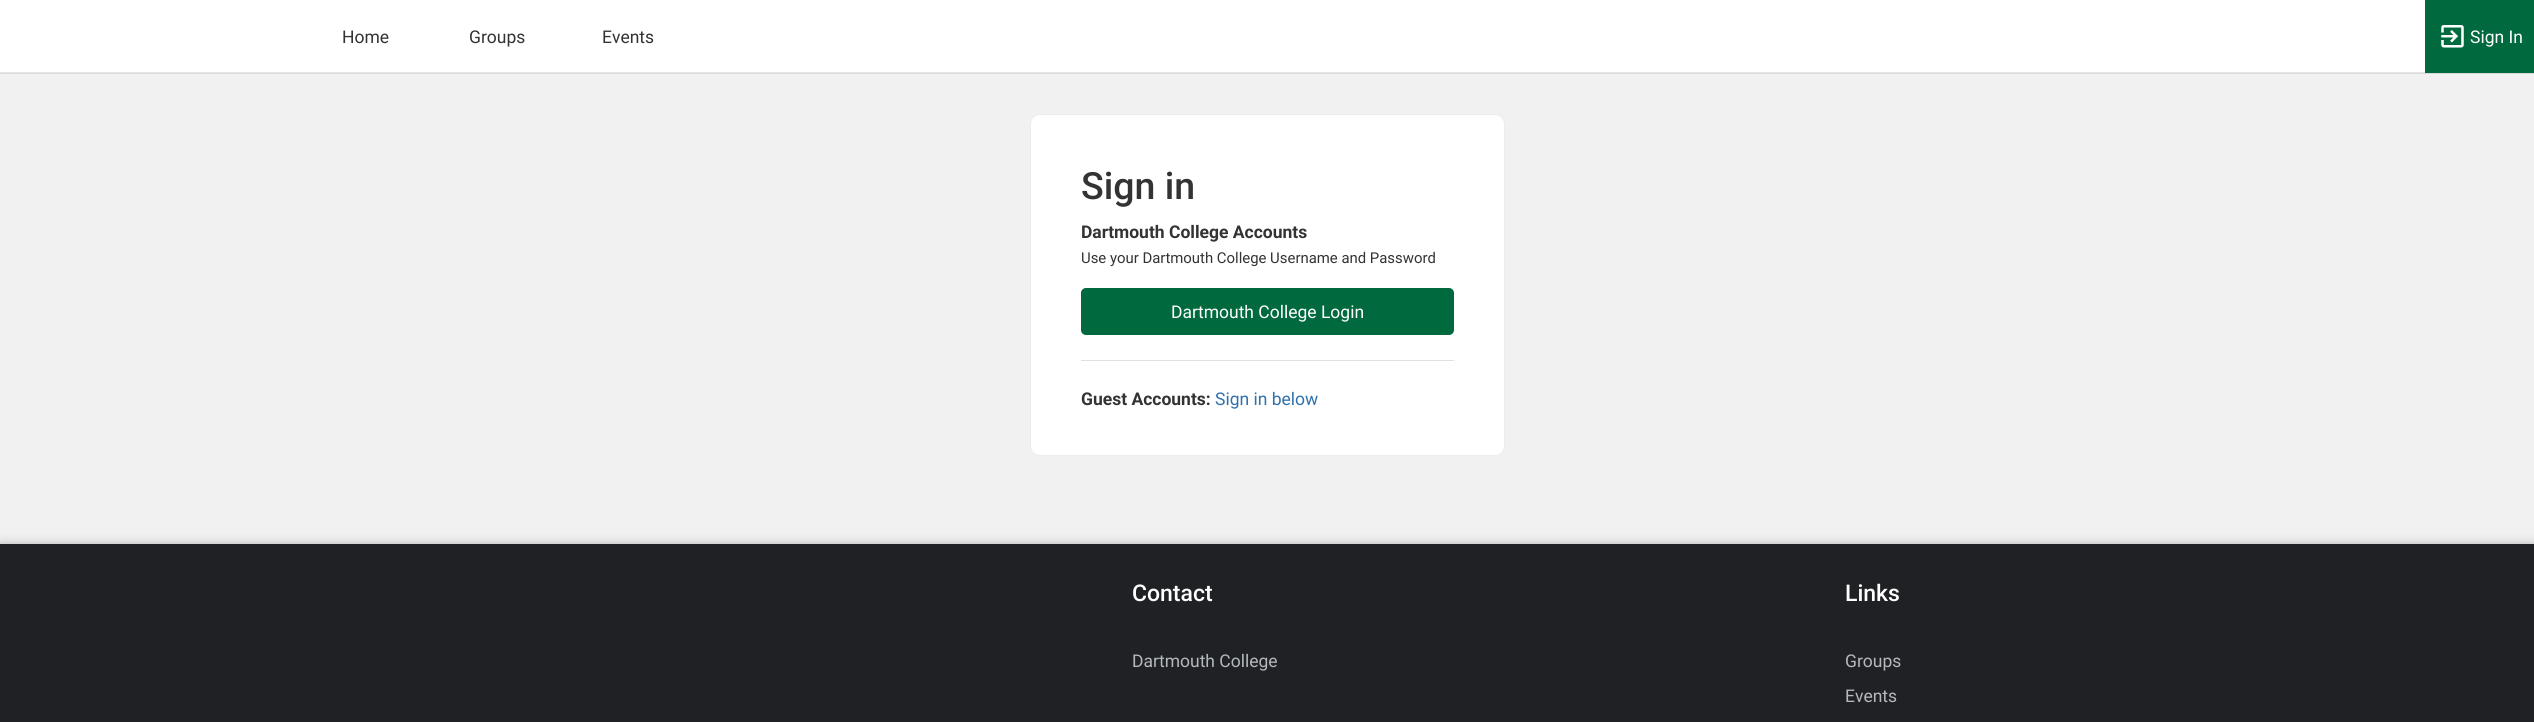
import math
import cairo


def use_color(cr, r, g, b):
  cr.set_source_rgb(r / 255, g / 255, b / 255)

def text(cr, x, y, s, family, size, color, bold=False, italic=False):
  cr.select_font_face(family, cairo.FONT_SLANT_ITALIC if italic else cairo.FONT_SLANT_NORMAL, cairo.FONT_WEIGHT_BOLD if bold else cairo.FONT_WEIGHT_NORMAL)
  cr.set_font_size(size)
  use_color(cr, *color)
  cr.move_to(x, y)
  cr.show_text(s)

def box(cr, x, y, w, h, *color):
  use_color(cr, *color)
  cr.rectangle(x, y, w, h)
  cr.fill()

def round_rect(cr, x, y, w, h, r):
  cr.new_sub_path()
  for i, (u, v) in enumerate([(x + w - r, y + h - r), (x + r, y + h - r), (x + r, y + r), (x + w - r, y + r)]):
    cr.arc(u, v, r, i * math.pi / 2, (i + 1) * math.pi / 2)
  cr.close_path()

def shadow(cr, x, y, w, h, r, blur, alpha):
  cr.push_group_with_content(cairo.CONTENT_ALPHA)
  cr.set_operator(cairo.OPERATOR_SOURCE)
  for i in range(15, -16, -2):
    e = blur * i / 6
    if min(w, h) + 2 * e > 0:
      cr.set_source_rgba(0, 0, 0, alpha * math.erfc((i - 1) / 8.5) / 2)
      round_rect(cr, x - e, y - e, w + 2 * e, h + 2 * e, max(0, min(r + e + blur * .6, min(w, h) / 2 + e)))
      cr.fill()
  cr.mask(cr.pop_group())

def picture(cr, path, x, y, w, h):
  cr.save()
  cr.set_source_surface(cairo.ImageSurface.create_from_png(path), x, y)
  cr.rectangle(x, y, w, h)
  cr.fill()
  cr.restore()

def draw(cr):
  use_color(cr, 241, 241, 241)
  cr.paint()
  box(cr, 0, 0, 2425, 72, 255, 255, 255)
  box(cr, 0, 72, 2425, 1, 230, 230, 230)
  box(cr, 2425, 0, 109, 73, 0, 105, 62)
  picture(cr, "img_01.png", 2441, 25, 23, 23)
  box(cr, 0, 73, 2534, 1, 217, 217, 217)
  use_color(cr, 255, 255, 255)
  round_rect(cr, 1030.5, 114.5, 474, 341, 9.5)
  cr.fill_preserve()
  use_color(cr, 236, 236, 236)
  cr.set_line_width(1)
  cr.stroke()
  use_color(cr, 0, 105, 62)
  round_rect(cr, 1081, 288, 373, 47, 5)
  cr.fill()
  box(cr, 1081, 360, 373, 1, 224, 224, 224)
  use_color(cr, 0, 0, 0)
  shadow(cr, 0, 543, 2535, 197, 0, 6, 0.14)
  shadow(cr, 0, 543, 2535, 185, 0, 2, 0.1)
  box(cr, 0, 544, 2534, 178, 32, 33, 36)
  text(cr, 342, 43, "Home", "Roboto", 17.5, (51, 51, 51))
  text(cr, 469, 43, "Groups", "Roboto", 17.5, (51, 51, 51))
  text(cr, 602, 43, "Events", "Roboto", 17.5, (51, 51, 51))
  text(cr, 2470, 43, "Sign In", "Roboto", 17.5, (255, 255, 255))
  text(cr, 1081, 199, "Sign in", "Roboto Medium", 37.5, (51, 51, 51))
  text(cr, 1081, 238, "Dartmouth College Accounts", "Roboto", 17.5, (51, 51, 51), bold=True)
  text(cr, 1081, 263, "Use your Dartmouth College Username and Password", "Roboto", 14.9, (51, 51, 51))
  text(cr, 1171, 318, "Dartmouth College Login", "Roboto", 17.5, (255, 255, 255))
  text(cr, 1081, 405, "Guest Accounts:", "Roboto", 17.5, (51, 51, 51), bold=True)
  text(cr, 1215, 405, "Sign in below", "Roboto", 17.5, (48, 113, 171))
  text(cr, 1132, 601, "Contact", "Roboto Medium", 23, (255, 255, 255))
  text(cr, 1132, 667, "Dartmouth College", "Roboto", 17.5, (179, 185, 189))
  text(cr, 1845, 601, "Links", "Roboto Medium", 23, (255, 255, 255))
  text(cr, 1845, 667, "Groups", "Roboto", 17.5, (179, 185, 189))
  text(cr, 1845, 702, "Events", "Roboto", 17.5, (179, 185, 189))


surface = cairo.ImageSurface(cairo.FORMAT_RGB24, 2534, 722)
cr = cairo.Context(surface)
options = cairo.FontOptions()
options.set_hint_metrics(cairo.HINT_METRICS_OFF)
options.set_hint_style(cairo.HINT_STYLE_NONE)
cr.set_font_options(options)
cr.set_miter_limit(4)
draw(cr)
surface.write_to_png("out.png")
